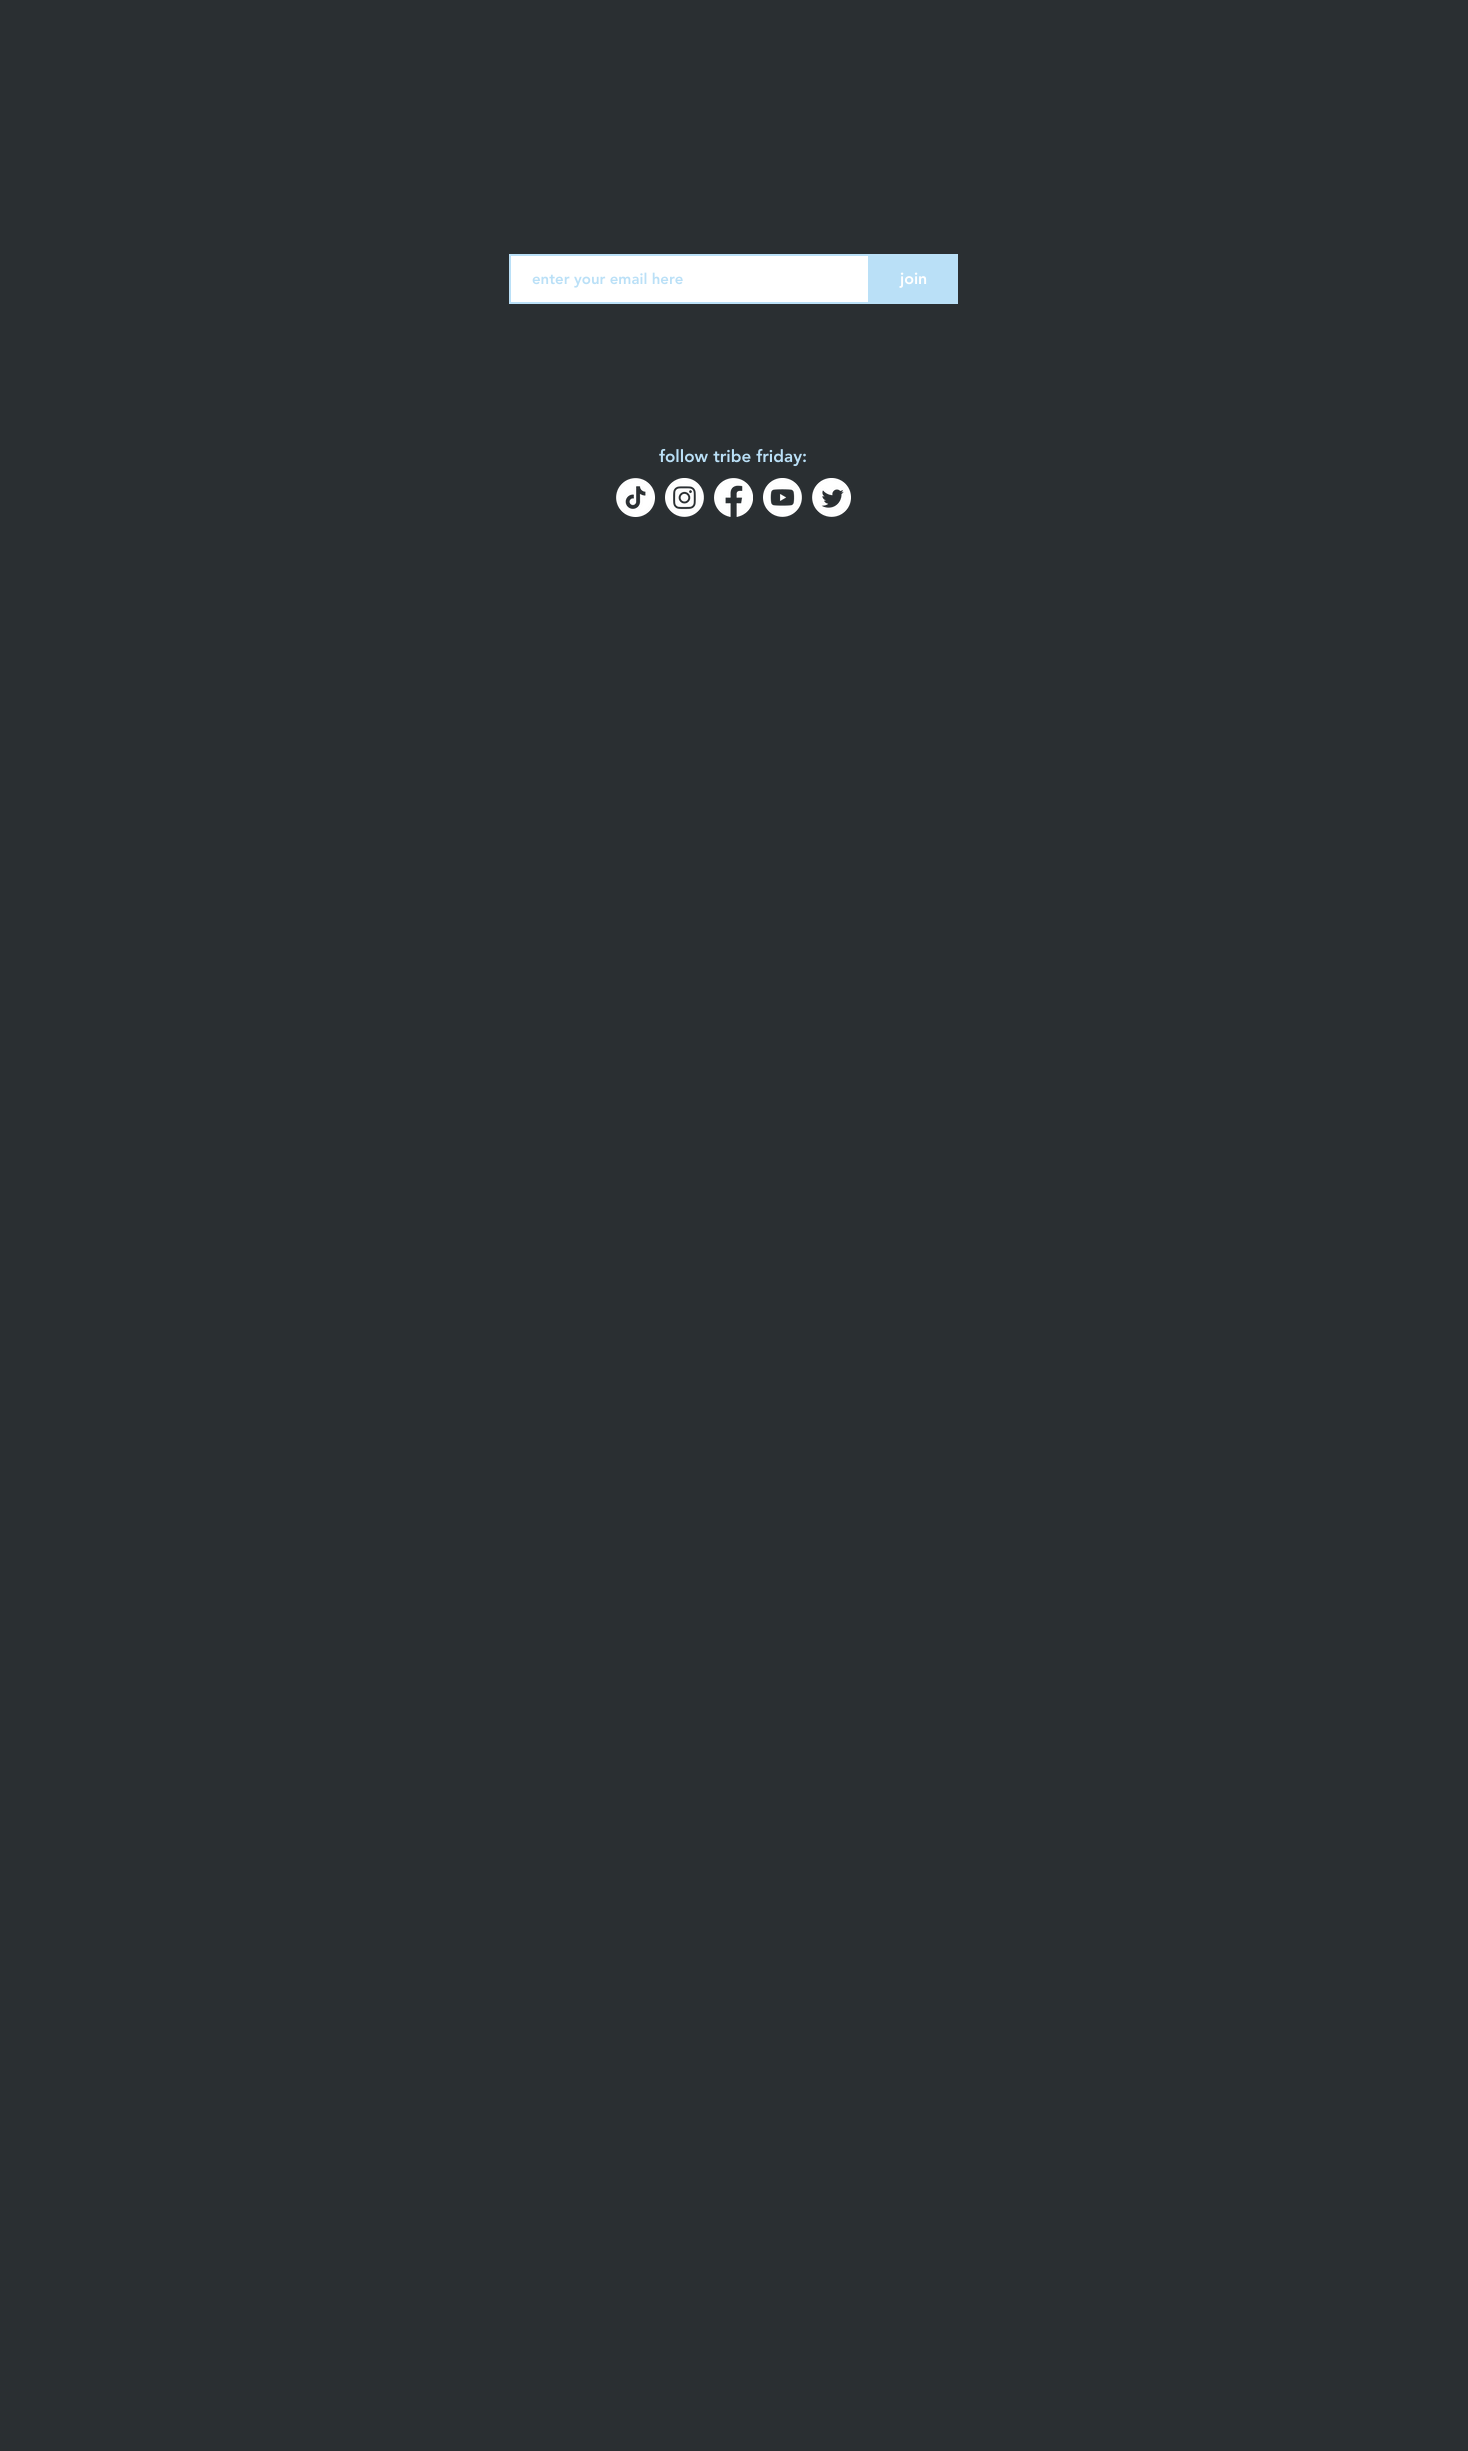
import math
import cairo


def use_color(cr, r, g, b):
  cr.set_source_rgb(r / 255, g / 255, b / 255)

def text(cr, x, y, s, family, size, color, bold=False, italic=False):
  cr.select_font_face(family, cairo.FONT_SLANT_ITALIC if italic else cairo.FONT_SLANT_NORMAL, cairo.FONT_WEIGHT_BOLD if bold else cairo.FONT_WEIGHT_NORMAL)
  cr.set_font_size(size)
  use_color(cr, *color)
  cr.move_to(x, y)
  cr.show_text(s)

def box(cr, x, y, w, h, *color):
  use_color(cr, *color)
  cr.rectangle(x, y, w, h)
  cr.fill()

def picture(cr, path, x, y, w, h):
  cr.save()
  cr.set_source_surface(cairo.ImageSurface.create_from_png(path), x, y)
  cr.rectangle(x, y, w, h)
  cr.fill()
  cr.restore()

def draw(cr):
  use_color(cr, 42, 47, 50)
  cr.paint()
  use_color(cr, 255, 255, 255)
  cr.rectangle(510, 255, 359, 48)
  cr.fill_preserve()
  use_color(cr, 186, 224, 247)
  cr.stroke()
  box(cr, 870, 254, 88, 50, 186, 224, 247)
  picture(cr, "img_01.png", 616, 478, 39, 39)
  picture(cr, "img_02.png", 665, 478, 39, 39)
  picture(cr, "img_03.png", 714, 478, 39, 39)
  picture(cr, "img_04.png", 763, 478, 39, 39)
  picture(cr, "img_05.png", 812, 478, 39, 39)
  text(cr, 532, 284, "enter your email here", "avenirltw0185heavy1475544 Black", 15, (186, 224, 247))
  text(cr, 900, 284, "join", "avenirltw0185heavy1475544 Black", 16, (255, 255, 255))
  text(cr, 659, 462, "follow tribe friday:", "avenirltw0185heavy1475544 Black", 17, (186, 224, 247))


surface = cairo.ImageSurface(cairo.FORMAT_RGB24, 1468, 2451)
cr = cairo.Context(surface)
options = cairo.FontOptions()
options.set_hint_metrics(cairo.HINT_METRICS_OFF)
options.set_hint_style(cairo.HINT_STYLE_NONE)
cr.set_font_options(options)
cr.set_miter_limit(4)
draw(cr)
surface.write_to_png("out.png")
